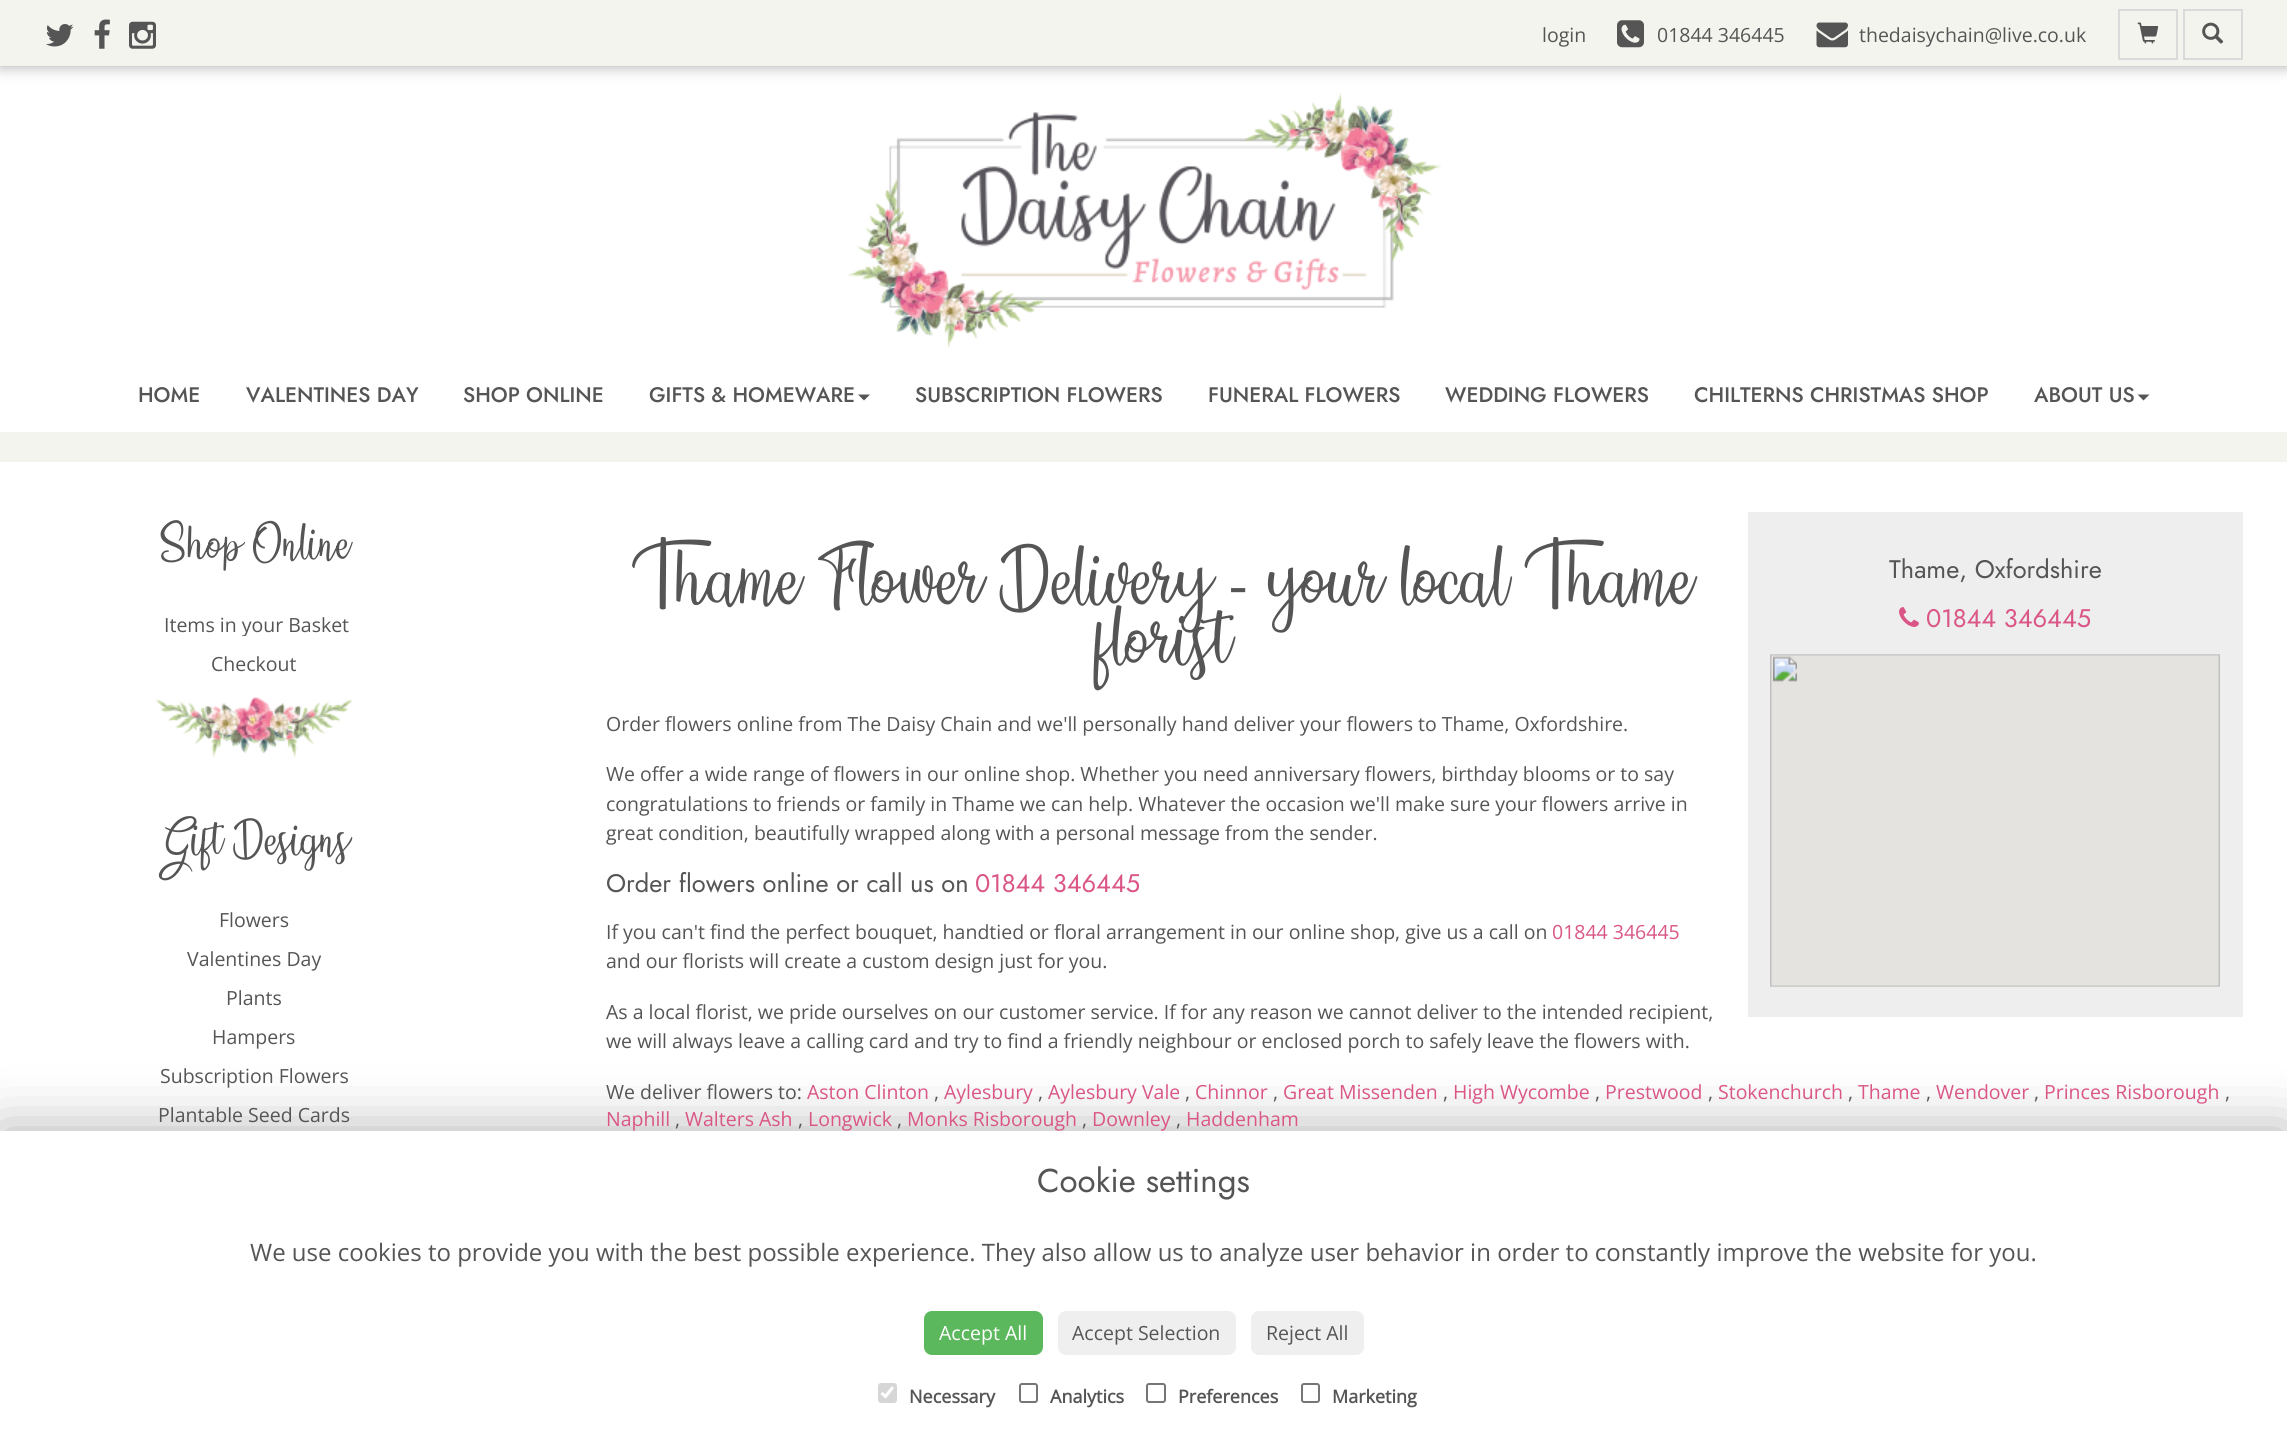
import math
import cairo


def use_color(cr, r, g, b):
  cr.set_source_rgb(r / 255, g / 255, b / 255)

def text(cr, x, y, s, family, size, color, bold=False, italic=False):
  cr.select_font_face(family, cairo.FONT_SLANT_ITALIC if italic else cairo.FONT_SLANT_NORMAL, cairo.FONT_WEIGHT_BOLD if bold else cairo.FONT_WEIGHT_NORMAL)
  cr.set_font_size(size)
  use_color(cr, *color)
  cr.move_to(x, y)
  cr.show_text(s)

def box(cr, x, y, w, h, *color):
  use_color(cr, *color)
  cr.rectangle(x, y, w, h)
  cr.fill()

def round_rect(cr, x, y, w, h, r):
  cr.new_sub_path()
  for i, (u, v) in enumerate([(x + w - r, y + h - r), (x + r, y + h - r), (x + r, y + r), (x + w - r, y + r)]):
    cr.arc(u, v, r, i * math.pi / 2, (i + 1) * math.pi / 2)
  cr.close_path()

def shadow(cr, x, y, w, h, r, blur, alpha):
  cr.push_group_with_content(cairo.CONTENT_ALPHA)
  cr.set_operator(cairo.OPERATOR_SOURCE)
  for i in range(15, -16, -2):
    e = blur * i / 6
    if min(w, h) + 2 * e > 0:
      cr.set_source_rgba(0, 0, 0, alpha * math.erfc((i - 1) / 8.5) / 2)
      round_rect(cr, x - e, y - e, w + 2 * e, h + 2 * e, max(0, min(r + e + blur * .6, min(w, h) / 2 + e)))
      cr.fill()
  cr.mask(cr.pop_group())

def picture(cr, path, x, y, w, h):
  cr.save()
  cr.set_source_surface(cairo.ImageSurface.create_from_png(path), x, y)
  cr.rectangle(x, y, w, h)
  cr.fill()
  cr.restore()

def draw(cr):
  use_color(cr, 244, 244, 239)
  cr.paint()
  box(cr, 0, 66, 2287, 366, 255, 255, 255)
  use_color(cr, 80, 80, 80)
  shadow(cr, 0, 0, 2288, 66, 0, 7.5, 0.5)
  box(cr, 0, 0, 2287, 66, 244, 244, 239)
  picture(cr, "img_01.png", 46, 24, 28, 23)
  picture(cr, "img_02.png", 94, 19, 16, 30)
  picture(cr, "img_03.png", 129, 21, 27, 28)
  picture(cr, "img_04.png", 1617, 20, 27, 28)
  picture(cr, "img_05.png", 1816, 22, 32, 26)
  cr.rectangle(2119, 10, 58, 49)
  use_color(cr, 218, 218, 218)
  cr.stroke()
  picture(cr, "img_06.png", 2137, 22, 22, 22)
  cr.rectangle(2184, 10, 58, 49)
  cr.stroke()
  picture(cr, "img_07.png", 2202, 22, 22, 22)
  picture(cr, "img_08.png", 847, 93, 595, 255)
  use_color(cr, 85, 85, 85)
  cr.new_path()
  cr.move_to(858, 394.5)
  cr.line_to(870, 394.5)
  cr.line_to(864, 400.5)
  cr.close_path()
  cr.fill()
  cr.new_path()
  cr.move_to(2137.5, 394.5)
  cr.line_to(2149.5, 394.5)
  cr.line_to(2143.5, 400.5)
  cr.close_path()
  cr.fill()
  box(cr, 0, 462, 2287, 669, 255, 255, 255)
  picture(cr, "img_09.png", 156, 697, 197, 61)
  box(cr, 1748, 512, 495, 505, 238, 238, 238)
  picture(cr, "img_10.png", 1899, 607, 20, 20)
  picture(cr, "img_11.png", 1770, 654, 450, 333)
  use_color(cr, 0, 0, 0)
  shadow(cr, 0, 1131, 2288, 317, 0, 30, 0.31)
  box(cr, 0, 1131, 2287, 316, 255, 255, 255)
  use_color(cr, 92, 184, 92)
  round_rect(cr, 924, 1311, 119, 44, 8)
  cr.fill()
  use_color(cr, 239, 239, 239)
  round_rect(cr, 1058, 1311, 178, 44, 8)
  cr.fill()
  round_rect(cr, 1251, 1311, 113, 44, 8)
  cr.fill()
  use_color(cr, 214, 214, 214)
  round_rect(cr, 878, 1383, 19, 20, 3)
  cr.fill()
  cr.new_path()
  cr.move_to(881.5, 1393)
  cr.line_to(885.5, 1396.5)
  cr.line_to(893, 1387)
  use_color(cr, 255, 255, 255)
  cr.set_line_width(3.1)
  cr.stroke()
  round_rect(cr, 1020, 1384, 17, 18, 2)
  use_color(cr, 118, 118, 118)
  cr.set_line_width(2)
  cr.stroke()
  round_rect(cr, 1147, 1384, 18, 18, 2)
  cr.stroke()
  round_rect(cr, 1302, 1384, 17, 18, 2)
  cr.stroke()
  text(cr, 1542, 42, "login", "Open Sans", 19.5, (85, 85, 85))
  text(cr, 1657, 42, "01844 346445", "Open Sans", 19.5, (85, 85, 85))
  text(cr, 1859, 42, "thedaisychain@live.co.uk", "Open Sans", 19.5, (85, 85, 85))
  text(cr, 138, 402, "HOME", "Jost Medium", 21, (85, 85, 85))
  text(cr, 246, 402, "VALENTINES DAY", "Jost Medium", 21, (85, 85, 85))
  text(cr, 463, 402, "SHOP ONLINE", "Jost Medium", 21, (85, 85, 85))
  text(cr, 649, 402, "GIFTS & HOMEWARE", "Jost Medium", 21, (85, 85, 85))
  text(cr, 915, 402, "SUBSCRIPTION FLOWERS", "Jost Medium", 21, (85, 85, 85))
  text(cr, 1208, 402, "FUNERAL FLOWERS", "Jost Medium", 21, (85, 85, 85))
  text(cr, 1445, 402, "WEDDING FLOWERS", "Jost Medium", 21, (85, 85, 85))
  text(cr, 1694, 402, "CHILTERNS CHRISTMAS SHOP", "Jost Medium", 21, (85, 85, 85))
  text(cr, 2034, 402, "ABOUT US", "Jost Medium", 21, (85, 85, 85))
  text(cr, 160, 558, "Shop Online", "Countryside", 33, (85, 85, 85))
  cr.save()
  cr.rectangle(45, 612, 419, 24)
  cr.clip()
  text(cr, 164, 632, "Items in your Basket", "Open Sans", 19.5, (85, 85, 85))
  cr.restore()
  text(cr, 211, 671, "Checkout", "Open Sans", 19.5, (85, 85, 85))
  text(cr, 159, 854, "Gift Designs", "Countryside", 33, (85, 85, 85))
  text(cr, 219, 927, "Flowers", "Open Sans", 19.5, (85, 85, 85))
  text(cr, 187, 966, "Valentines Day", "Open Sans", 19.5, (85, 85, 85))
  text(cr, 226, 1005, "Plants", "Open Sans", 19.5, (85, 85, 85))
  text(cr, 212, 1044, "Hampers", "Open Sans", 19.5, (85, 85, 85))
  text(cr, 160, 1083, "Subscription Flowers", "Open Sans", 19.5, (85, 85, 85))
  text(cr, 158, 1122, "Plantable Seed Cards", "Open Sans", 19.5, (85, 85, 85))
  text(cr, 632, 603, "Thame Flower Delivery", "Countryside", 54.6, (85, 85, 85))
  text(cr, 1229, 603, "-", "Liberation Serif", 54.6, (85, 85, 85))
  text(cr, 1266, 603, "your local Thame", "Countryside", 54.6, (85, 85, 85))
  text(cr, 1094, 663, "florist", "Countryside", 54.6, (85, 85, 85))
  text(cr, 1889, 578, "Thame, Oxfordshire", "Jost", 25.4, (85, 85, 85))
  text(cr, 1926, 627, "01844 346445", "Jost", 25.4, (218, 86, 134))
  text(cr, 606, 731, "Order flowers online from The Daisy Chain and we'll personally hand deliver your flowers to Thame, Oxfordshire.", "Open Sans", 19.5, (85, 85, 85))
  text(cr, 606, 781, "We offer a wide range of flowers in our online shop. Whether you need anniversary flowers, birthday blooms or to say", "Open Sans", 19.5, (85, 85, 85))
  text(cr, 606, 811, "congratulations to friends or family in Thame we can help. Whatever the occasion we'll make sure your flowers arrive in", "Open Sans", 19.5, (85, 85, 85))
  text(cr, 606, 840, "great condition, beautifully wrapped along with a personal message from the sender.", "Open Sans", 19.5, (85, 85, 85))
  text(cr, 606, 892, "Order flowers online or call us on", "Jost", 25.4, (85, 85, 85))
  text(cr, 975, 892, "01844 346445", "Jost", 25.4, (218, 86, 134))
  text(cr, 606, 939, "If you can't find the perfect bouquet, handtied or floral arrangement in our online shop, give us a call on", "Open Sans", 19.5, (85, 85, 85))
  text(cr, 1552, 939, "01844 346445", "Open Sans", 19.5, (218, 86, 134))
  text(cr, 606, 968, "and our florists will create a custom design just for you.", "Open Sans", 19.5, (85, 85, 85))
  text(cr, 606, 1019, "As a local florist, we pride ourselves on our customer service. If for any reason we cannot deliver to the intended recipient,", "Open Sans", 19.5, (85, 85, 85))
  text(cr, 606, 1048, "we will always leave a calling card and try to find a friendly neighbour or enclosed porch to safely leave the flowers with.", "Open Sans", 19.5, (85, 85, 85))
  text(cr, 606, 1099, "We deliver flowers to:", "Open Sans", 19.5, (85, 85, 85))
  text(cr, 807, 1099, "Aston Clinton", "Open Sans", 19.5, (218, 86, 134))
  text(cr, 934, 1099, ",", "Open Sans", 19.5, (85, 85, 85))
  text(cr, 944, 1099, "Aylesbury", "Open Sans", 19.5, (218, 86, 134))
  text(cr, 1038, 1099, ",", "Open Sans", 19.5, (85, 85, 85))
  text(cr, 1048, 1099, "Aylesbury Vale", "Open Sans", 19.5, (218, 86, 134))
  text(cr, 1185, 1099, ",", "Open Sans", 19.5, (85, 85, 85))
  text(cr, 1195, 1099, "Chinnor", "Open Sans", 19.5, (218, 86, 134))
  text(cr, 1273, 1099, ",", "Open Sans", 19.5, (85, 85, 85))
  text(cr, 1283, 1099, "Great Missenden", "Open Sans", 19.5, (218, 86, 134))
  text(cr, 1443, 1099, ",", "Open Sans", 19.5, (85, 85, 85))
  text(cr, 1453, 1099, "High Wycombe", "Open Sans", 19.5, (218, 86, 134))
  text(cr, 1595, 1099, ",", "Open Sans", 19.5, (85, 85, 85))
  text(cr, 1605, 1099, "Prestwood", "Open Sans", 19.5, (218, 86, 134))
  text(cr, 1708, 1099, ",", "Open Sans", 19.5, (85, 85, 85))
  text(cr, 1718, 1099, "Stokenchurch", "Open Sans", 19.5, (218, 86, 134))
  text(cr, 1848, 1099, ",", "Open Sans", 19.5, (85, 85, 85))
  text(cr, 1858, 1099, "Thame", "Open Sans", 19.5, (218, 86, 134))
  text(cr, 1926, 1099, ",", "Open Sans", 19.5, (85, 85, 85))
  text(cr, 1936, 1099, "Wendover", "Open Sans", 19.5, (218, 86, 134))
  text(cr, 2034, 1099, ",", "Open Sans", 19.5, (85, 85, 85))
  text(cr, 2044, 1099, "Princes Risborough", "Open Sans", 19.5, (218, 86, 134))
  text(cr, 2225, 1099, ",", "Open Sans", 19.5, (85, 85, 85))
  text(cr, 606, 1126, "Naphill", "Open Sans", 19.5, (218, 86, 134))
  text(cr, 675, 1126, ",", "Open Sans", 19.5, (85, 85, 85))
  text(cr, 685, 1126, "Walters Ash", "Open Sans", 19.5, (218, 86, 134))
  text(cr, 798, 1126, ",", "Open Sans", 19.5, (85, 85, 85))
  text(cr, 808, 1126, "Longwick", "Open Sans", 19.5, (218, 86, 134))
  text(cr, 897, 1126, ",", "Open Sans", 19.5, (85, 85, 85))
  text(cr, 907, 1126, "Monks Risborough", "Open Sans", 19.5, (218, 86, 134))
  text(cr, 1082, 1126, ",", "Open Sans", 19.5, (85, 85, 85))
  text(cr, 1092, 1126, "Downley", "Open Sans", 19.5, (218, 86, 134))
  text(cr, 1176, 1126, ",", "Open Sans", 19.5, (85, 85, 85))
  text(cr, 1186, 1126, "Haddenham", "Open Sans", 19.5, (218, 86, 134))
  text(cr, 1037, 1192, "Cookie settings", "Jost", 33, (85, 85, 85))
  text(cr, 250, 1261, "We use cookies to provide you with the best possible experience. They also allow us to analyze user behavior in order to constantly improve the website for you.", "Open Sans", 24, (85, 85, 85))
  text(cr, 939, 1340, "Accept All", "Open Sans", 19.5, (255, 255, 255))
  text(cr, 1072, 1340, "Accept Selection", "Open Sans", 19.5, (85, 85, 85))
  text(cr, 1266, 1340, "Reject All", "Open Sans", 19.5, (85, 85, 85))
  text(cr, 909, 1403, "Necessary", "Open Sans", 18, (85, 85, 85), bold=True)
  text(cr, 1050, 1403, "Analytics", "Open Sans", 18, (85, 85, 85), bold=True)
  text(cr, 1178, 1403, "Preferences", "Open Sans", 18, (85, 85, 85), bold=True)
  text(cr, 1332, 1403, "Marketing", "Open Sans", 18, (85, 85, 85), bold=True)


surface = cairo.ImageSurface(cairo.FORMAT_RGB24, 2287, 1447)
cr = cairo.Context(surface)
options = cairo.FontOptions()
options.set_hint_metrics(cairo.HINT_METRICS_OFF)
options.set_hint_style(cairo.HINT_STYLE_NONE)
cr.set_font_options(options)
cr.set_miter_limit(4)
draw(cr)
surface.write_to_png("out.png")
